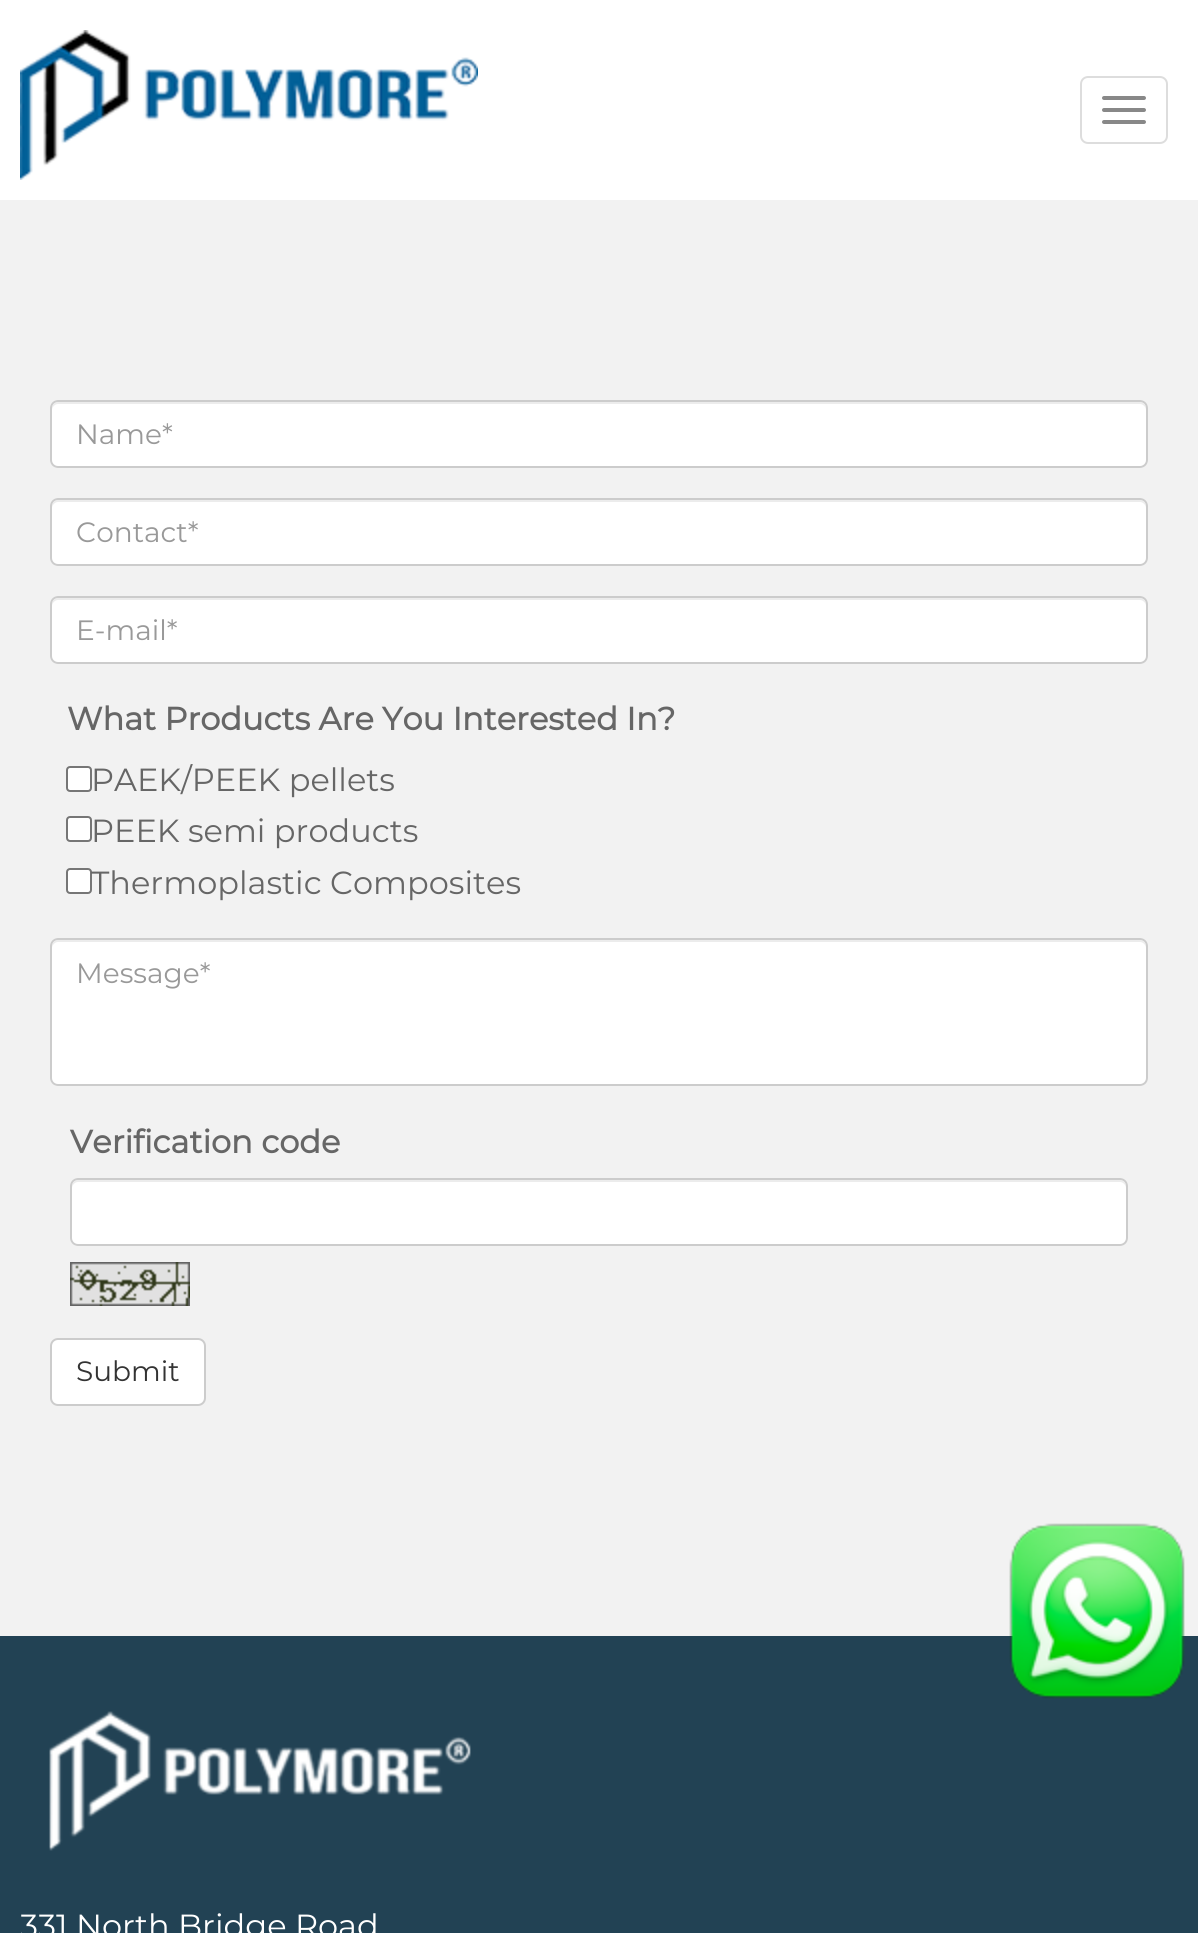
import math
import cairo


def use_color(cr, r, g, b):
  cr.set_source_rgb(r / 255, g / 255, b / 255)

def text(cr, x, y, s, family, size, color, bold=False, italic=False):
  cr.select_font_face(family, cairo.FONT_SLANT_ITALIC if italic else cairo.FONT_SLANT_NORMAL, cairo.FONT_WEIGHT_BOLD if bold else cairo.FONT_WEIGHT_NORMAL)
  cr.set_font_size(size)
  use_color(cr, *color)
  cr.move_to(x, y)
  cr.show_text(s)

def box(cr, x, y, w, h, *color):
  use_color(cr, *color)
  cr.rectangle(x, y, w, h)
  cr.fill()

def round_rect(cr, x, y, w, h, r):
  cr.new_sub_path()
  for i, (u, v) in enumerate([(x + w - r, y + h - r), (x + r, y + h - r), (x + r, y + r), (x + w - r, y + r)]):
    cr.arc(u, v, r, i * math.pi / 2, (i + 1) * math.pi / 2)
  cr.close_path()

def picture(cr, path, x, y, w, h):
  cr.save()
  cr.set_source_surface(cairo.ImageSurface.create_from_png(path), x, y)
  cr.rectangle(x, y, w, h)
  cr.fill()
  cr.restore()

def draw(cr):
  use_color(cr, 255, 255, 255)
  cr.paint()
  picture(cr, "img_01.png", 20, 30, 458, 150)
  round_rect(cr, 1081, 77, 86, 66, 7)
  use_color(cr, 221, 221, 221)
  cr.stroke()
  use_color(cr, 136, 136, 136)
  round_rect(cr, 1102, 96, 44, 4, 2)
  cr.fill()
  round_rect(cr, 1102, 108, 44, 4, 2)
  cr.fill()
  round_rect(cr, 1102, 120, 44, 4, 2)
  cr.fill()
  box(cr, 0, 200, 1198, 1436, 242, 242, 242)
  use_color(cr, 255, 255, 255)
  round_rect(cr, 50, 400, 1098, 68, 8)
  cr.fill()
  use_color(cr, 236, 236, 236)
  cr.new_path()
  cr.move_to(58, 404)
  cr.line_to(1140, 404)
  cr.curve_to(1143, 404, 1146, 407, 1146, 410)
  cr.line_to(1146, 408)
  cr.curve_to(1146, 405, 1143, 402, 1140, 402)
  cr.line_to(58, 402)
  cr.curve_to(55, 402, 52, 405, 52, 408)
  cr.line_to(52, 410)
  cr.curve_to(52, 407, 55, 404, 58, 404)
  cr.close_path()
  cr.fill()
  round_rect(cr, 51, 401, 1096, 66, 7)
  use_color(cr, 204, 204, 204)
  cr.stroke()
  use_color(cr, 255, 255, 255)
  round_rect(cr, 50, 498, 1098, 68, 8)
  cr.fill()
  use_color(cr, 236, 236, 236)
  cr.new_path()
  cr.move_to(58, 502)
  cr.line_to(1140, 502)
  cr.curve_to(1143, 502, 1146, 505, 1146, 508)
  cr.line_to(1146, 506)
  cr.curve_to(1146, 503, 1143, 500, 1140, 500)
  cr.line_to(58, 500)
  cr.curve_to(55, 500, 52, 503, 52, 506)
  cr.line_to(52, 508)
  cr.curve_to(52, 505, 55, 502, 58, 502)
  cr.close_path()
  cr.fill()
  round_rect(cr, 51, 499, 1096, 66, 7)
  use_color(cr, 204, 204, 204)
  cr.stroke()
  use_color(cr, 255, 255, 255)
  round_rect(cr, 50, 596, 1098, 68, 8)
  cr.fill()
  use_color(cr, 236, 236, 236)
  cr.new_path()
  cr.move_to(58, 600)
  cr.line_to(1140, 600)
  cr.curve_to(1143, 600, 1146, 603, 1146, 606)
  cr.line_to(1146, 604)
  cr.curve_to(1146, 601, 1143, 598, 1140, 598)
  cr.line_to(58, 598)
  cr.curve_to(55, 598, 52, 601, 52, 604)
  cr.line_to(52, 606)
  cr.curve_to(52, 603, 55, 600, 58, 600)
  cr.close_path()
  cr.fill()
  round_rect(cr, 51, 597, 1096, 66, 7)
  use_color(cr, 204, 204, 204)
  cr.stroke()
  use_color(cr, 255, 255, 255)
  round_rect(cr, 67, 767, 24, 24, 3)
  cr.fill_preserve()
  use_color(cr, 118, 118, 118)
  cr.stroke()
  use_color(cr, 255, 255, 255)
  round_rect(cr, 67, 817, 24, 24, 3)
  cr.fill_preserve()
  use_color(cr, 118, 118, 118)
  cr.stroke()
  use_color(cr, 255, 255, 255)
  round_rect(cr, 67, 869, 24, 24, 3)
  cr.fill_preserve()
  use_color(cr, 118, 118, 118)
  cr.stroke()
  use_color(cr, 255, 255, 255)
  round_rect(cr, 50, 938, 1098, 148, 8)
  cr.fill()
  use_color(cr, 236, 236, 236)
  cr.new_path()
  cr.move_to(58, 942)
  cr.line_to(1140, 942)
  cr.curve_to(1143, 942, 1146, 945, 1146, 948)
  cr.line_to(1146, 946)
  cr.curve_to(1146, 943, 1143, 940, 1140, 940)
  cr.line_to(58, 940)
  cr.curve_to(55, 940, 52, 943, 52, 946)
  cr.line_to(52, 948)
  cr.curve_to(52, 945, 55, 942, 58, 942)
  cr.close_path()
  cr.fill()
  round_rect(cr, 51, 939, 1096, 146, 7)
  use_color(cr, 204, 204, 204)
  cr.stroke()
  use_color(cr, 255, 255, 255)
  round_rect(cr, 70, 1178, 1058, 68, 8)
  cr.fill()
  use_color(cr, 236, 236, 236)
  cr.new_path()
  cr.move_to(78, 1182)
  cr.line_to(1120, 1182)
  cr.curve_to(1123, 1182, 1126, 1185, 1126, 1188)
  cr.line_to(1126, 1186)
  cr.curve_to(1126, 1183, 1123, 1180, 1120, 1180)
  cr.line_to(78, 1180)
  cr.curve_to(75, 1180, 72, 1183, 72, 1186)
  cr.line_to(72, 1188)
  cr.curve_to(72, 1185, 75, 1182, 78, 1182)
  cr.close_path()
  cr.fill()
  round_rect(cr, 71, 1179, 1056, 66, 7)
  use_color(cr, 204, 204, 204)
  cr.stroke()
  picture(cr, "img_02.png", 70, 1262, 120, 44)
  use_color(cr, 255, 255, 255)
  round_rect(cr, 51, 1339, 154, 66, 7)
  cr.fill_preserve()
  use_color(cr, 204, 204, 204)
  cr.stroke()
  box(cr, 0, 1636, 1198, 297, 34, 66, 84)
  picture(cr, "img_03.png", 1009, 1523, 176, 176)
  picture(cr, "img_04.png", 49, 1711, 422, 140)
  text(cr, 76, 444, "Name*", "Montserrat", 28, (153, 153, 153))
  text(cr, 76, 542, "Contact*", "Montserrat", 28, (153, 153, 153))
  text(cr, 76, 640, "E-mail*", "Montserrat", 28, (153, 153, 153))
  text(cr, 67, 730, "What Products Are You Interested In?", "Montserrat", 32, (102, 102, 102), bold=True)
  text(cr, 91, 791, "PAEK/PEEK pellets", "Montserrat", 32, (102, 102, 102))
  text(cr, 91, 842, "PEEK semi products", "Montserrat", 32, (102, 102, 102))
  text(cr, 91, 894, "Thermoplastic Composites", "Montserrat", 32, (102, 102, 102))
  text(cr, 76, 983, "Message*", "Montserrat", 28, (153, 153, 153))
  text(cr, 70, 1153, "Verification code", "Montserrat", 32, (102, 102, 102), bold=True)
  text(cr, 76, 1381, "Submit", "Montserrat", 28, (51, 51, 51))
  text(cr, 20, 1937, "331 North Bridge Road", "Montserrat", 32, (255, 255, 255))


surface = cairo.ImageSurface(cairo.FORMAT_RGB24, 1198, 1933)
cr = cairo.Context(surface)
options = cairo.FontOptions()
options.set_hint_metrics(cairo.HINT_METRICS_OFF)
options.set_hint_style(cairo.HINT_STYLE_NONE)
cr.set_font_options(options)
cr.set_miter_limit(4)
draw(cr)
surface.write_to_png("out.png")
